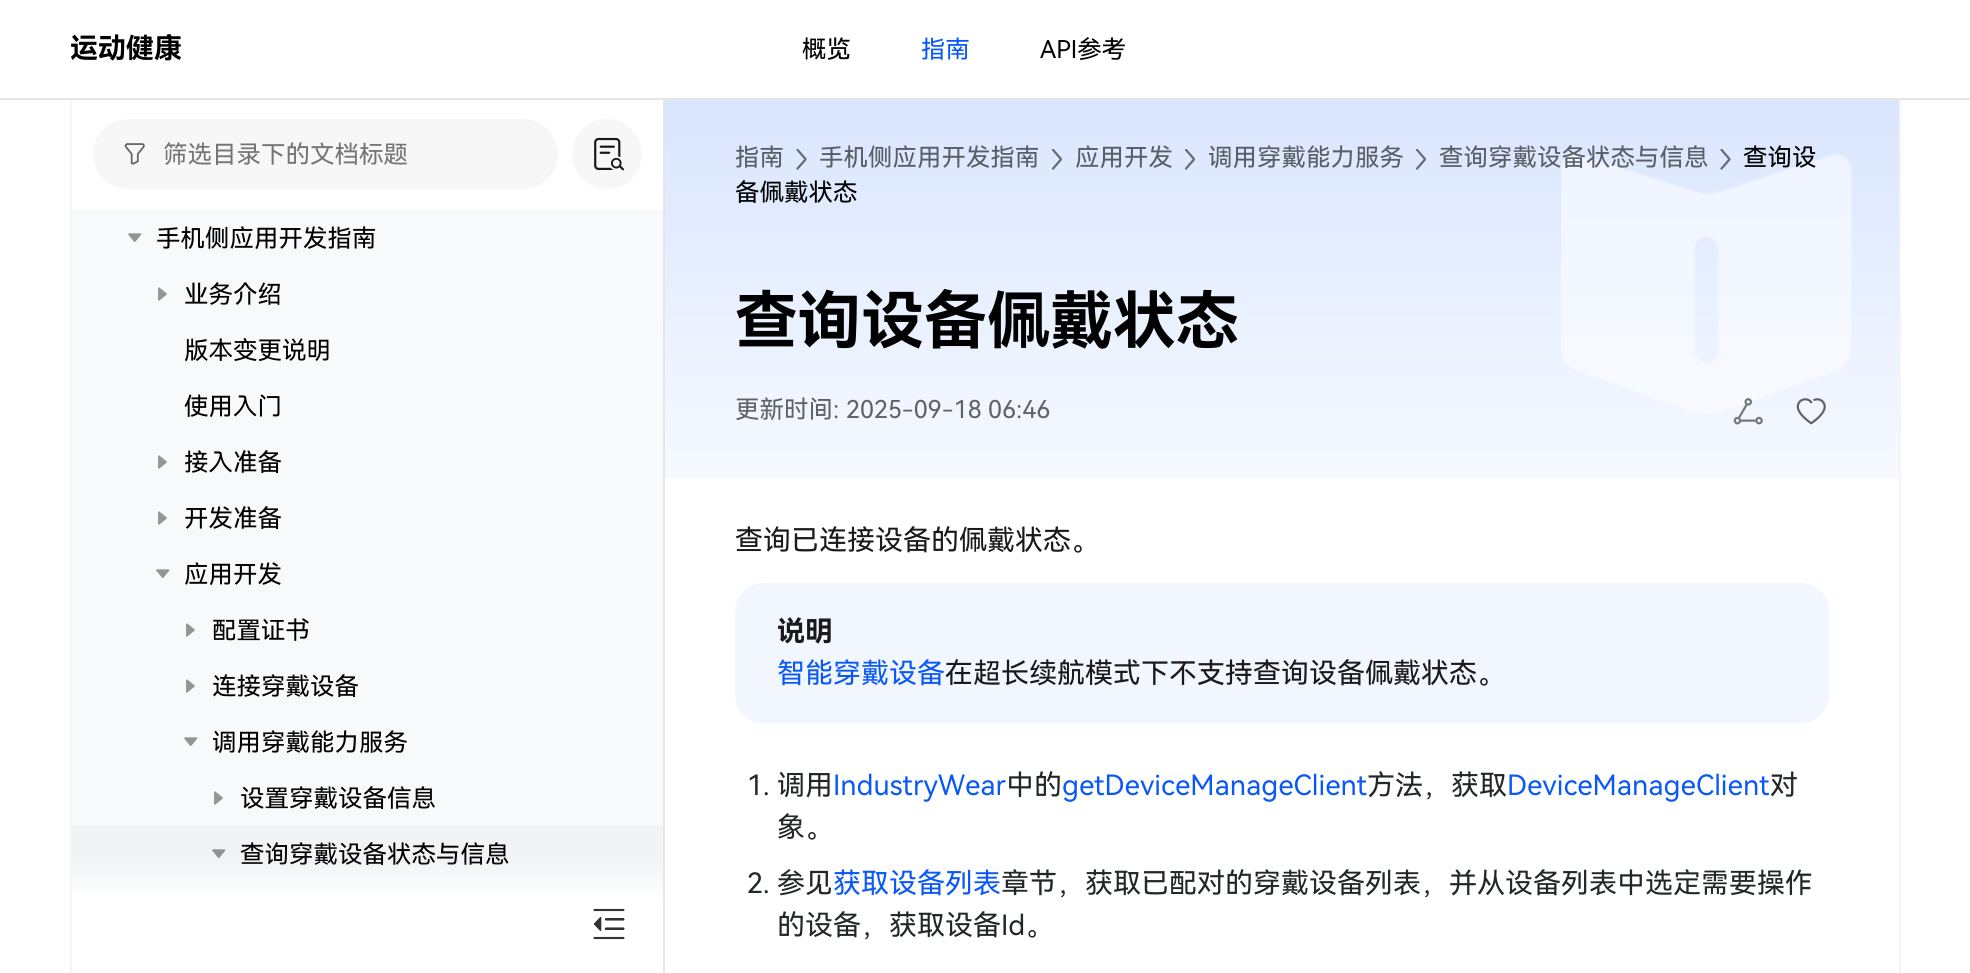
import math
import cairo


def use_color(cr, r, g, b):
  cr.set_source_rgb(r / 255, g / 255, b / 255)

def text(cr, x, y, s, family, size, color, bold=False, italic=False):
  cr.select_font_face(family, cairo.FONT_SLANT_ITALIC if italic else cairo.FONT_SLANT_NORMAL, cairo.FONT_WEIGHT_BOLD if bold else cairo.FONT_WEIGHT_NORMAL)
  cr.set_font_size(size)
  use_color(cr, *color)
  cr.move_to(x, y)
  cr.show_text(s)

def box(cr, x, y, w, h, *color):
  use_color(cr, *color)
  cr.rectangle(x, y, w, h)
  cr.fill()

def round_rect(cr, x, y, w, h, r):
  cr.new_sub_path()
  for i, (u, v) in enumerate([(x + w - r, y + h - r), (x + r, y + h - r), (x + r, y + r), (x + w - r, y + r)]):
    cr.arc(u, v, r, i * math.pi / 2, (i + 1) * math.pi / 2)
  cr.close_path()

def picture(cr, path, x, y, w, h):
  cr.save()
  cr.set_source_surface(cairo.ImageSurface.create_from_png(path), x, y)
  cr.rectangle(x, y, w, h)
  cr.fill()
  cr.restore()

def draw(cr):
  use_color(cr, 255, 255, 255)
  cr.paint()
  box(cr, 0, 98, 1970, 2, 230, 230, 230)
  box(cr, 663, 100, 2, 873, 230, 230, 230)
  box(cr, 70, 100, 2, 873, 245, 245, 245)
  use_color(cr, 247, 247, 247)
  round_rect(cr, 93, 119, 465, 70, 35)
  cr.fill()
  picture(cr, "img_01.png", 124, 143, 21, 22)
  cr.arc(607, 154, 35, 0, 2 * math.pi)
  cr.fill()
  picture(cr, "img_02.png", 594, 137, 30, 34)
  box(cr, 72, 210, 591, 616, 248, 249, 250)
  picture(cr, "img_03.png", 128, 233, 14, 10)
  picture(cr, "img_04.png", 158, 287, 9, 14)
  picture(cr, "img_04.png", 158, 455, 9, 14)
  picture(cr, "img_04.png", 158, 511, 9, 14)
  picture(cr, "img_03.png", 156, 569, 14, 10)
  picture(cr, "img_04.png", 186, 623, 9, 14)
  picture(cr, "img_04.png", 186, 679, 9, 14)
  picture(cr, "img_03.png", 184, 737, 14, 10)
  picture(cr, "img_04.png", 214, 791, 9, 14)
  box(cr, 72, 826, 591, 73, 241, 243, 245)
  picture(cr, "img_05.png", 212, 849, 14, 10)
  picture(cr, "img_06.png", 593, 908, 32, 32)
  box(cr, 1899, 100, 2, 873, 245, 245, 245)
  gradient = cairo.LinearGradient(1282, 91, 1282, 478)
  gradient.add_color_stop_rgba(0, 0.851, 0.898, 0.996, 1)
  gradient.add_color_stop_rgba(1, 0.965, 0.976, 1, 1)
  cr.set_source(gradient)
  cr.rectangle(665, 100, 1234, 378)
  cr.fill()
  picture(cr, "img_07.png", 796, 149, 11, 21)
  picture(cr, "img_08.png", 1051, 149, 11, 21)
  picture(cr, "img_08.png", 1184, 149, 11, 21)
  picture(cr, "img_08.png", 1415, 149, 11, 21)
  picture(cr, "img_11.png", 1561, 154, 291, 260)
  picture(cr, "img_07.png", 1720, 149, 11, 21)
  picture(cr, "img_09.png", 1733, 398, 30, 27)
  picture(cr, "img_10.png", 1796, 398, 30, 27)
  use_color(cr, 241, 246, 255)
  round_rect(cr, 735, 583, 1094, 140, 28)
  cr.fill()
  text(cr, 70, 58, "运动健康", "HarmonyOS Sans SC", 28, (0, 0, 0), bold=True)
  text(cr, 802, 58, "概览", "HarmonyOS Sans SC", 24.5, (0, 0, 0))
  text(cr, 921, 58, "指南", "HarmonyOS Sans SC", 24.5, (10, 89, 247))
  text(cr, 1040, 58, "API参考", "HarmonyOS Sans SC", 24.5, (0, 0, 0))
  text(cr, 163, 163, "筛选目录下的文档标题", "HarmonyOS Sans SC", 24.5, (117, 117, 117))
  text(cr, 156, 247, "手机侧应用开发指南", "HarmonyOS Sans SC", 24.5, (0, 0, 0))
  text(cr, 184, 303, "业务介绍", "HarmonyOS Sans SC", 24.5, (0, 0, 0))
  text(cr, 184, 359, "版本变更说明", "HarmonyOS Sans SC", 24.5, (0, 0, 0))
  text(cr, 184, 415, "使用入门", "HarmonyOS Sans SC", 24.5, (0, 0, 0))
  text(cr, 184, 471, "接入准备", "HarmonyOS Sans SC", 24.5, (0, 0, 0))
  text(cr, 184, 527, "开发准备", "HarmonyOS Sans SC", 24.5, (0, 0, 0))
  text(cr, 184, 583, "应用开发", "HarmonyOS Sans SC", 24.5, (0, 0, 0))
  text(cr, 212, 639, "配置证书", "HarmonyOS Sans SC", 24.5, (0, 0, 0))
  text(cr, 212, 695, "连接穿戴设备", "HarmonyOS Sans SC", 24.5, (0, 0, 0))
  text(cr, 212, 751, "调用穿戴能力服务", "HarmonyOS Sans SC", 24.5, (0, 0, 0))
  text(cr, 240, 807, "设置穿戴设备信息", "HarmonyOS Sans SC", 24.5, (0, 0, 0))
  text(cr, 240, 863, "查询穿戴设备状态与信息", "HarmonyOS Sans SC", 24.5, (0, 0, 0))
  gradient = cairo.LinearGradient(368, 861, 368, 938)
  gradient.add_color_stop_rgba(0, 1, 1, 1, 0)
  gradient.add_color_stop_rgba(0.5, 1, 1, 1, 1)
  cr.set_source(gradient)
  cr.rectangle(72, 862, 591, 37)
  cr.fill()
  text(cr, 735, 166, "指南", "HarmonyOS Sans SC", 24.5, (89, 93, 102))
  text(cr, 819, 166, "手机侧应用开发指南", "HarmonyOS Sans SC", 24.5, (89, 93, 102))
  text(cr, 1075, 166, "应用开发", "HarmonyOS Sans SC", 24.5, (89, 93, 102))
  text(cr, 1208, 166, "调用穿戴能力服务", "HarmonyOS Sans SC", 24.5, (89, 93, 102))
  text(cr, 1439, 166, "查询穿戴设备状态与信息", "HarmonyOS Sans SC", 24.5, (89, 93, 102))
  text(cr, 1743, 166, "查询设", "HarmonyOS Sans SC", 24.5, (0, 0, 0))
  text(cr, 735, 201, "备佩戴状态", "HarmonyOS Sans SC", 24.5, (0, 0, 0))
  text(cr, 735, 343, "查询设备佩戴状态", "HarmonyOS Sans SC", 63, (0, 0, 0), bold=True)
  text(cr, 735, 418, "更新时间:", "HarmonyOS Sans SC", 24.5, (96, 98, 102))
  text(cr, 846, 418, "2025-09-18", "HarmonyOS Sans SC", 24.5, (96, 98, 102))
  text(cr, 988, 418, "06:46", "HarmonyOS Sans SC", 24.5, (96, 98, 102))
  text(cr, 735, 550, "查询已连接设备的佩戴状态。", "HarmonyOS Sans SC", 28, (26, 26, 26))
  text(cr, 777, 641, "说明", "HarmonyOS Sans SC", 28, (26, 26, 26), bold=True)
  text(cr, 777, 683, "智能穿戴设备", "HarmonyOS Sans SC", 28, (10, 89, 247))
  text(cr, 945, 683, "在超长续航模式下不支持查询设备佩戴状态。", "HarmonyOS Sans SC", 28, (26, 26, 26))
  text(cr, 747, 795, "1.", "HarmonyOS Sans SC", 28, (36, 39, 40))
  text(cr, 777, 795, "调用", "HarmonyOS Sans SC", 28, (36, 39, 40))
  text(cr, 833, 795, "IndustryWear", "HarmonyOS Sans SC", 28, (10, 89, 247))
  text(cr, 1006, 795, "中的", "HarmonyOS Sans SC", 28, (36, 39, 40))
  text(cr, 1062, 795, "getDeviceManageClient", "HarmonyOS Sans SC", 28, (10, 89, 247))
  text(cr, 1367, 795, "方法，获取", "HarmonyOS Sans SC", 28, (36, 39, 40))
  text(cr, 1507, 795, "DeviceManageClient", "HarmonyOS Sans SC", 28, (10, 89, 247))
  text(cr, 1770, 795, "对", "HarmonyOS Sans SC", 28, (36, 39, 40))
  text(cr, 777, 837, "象。", "HarmonyOS Sans SC", 28, (36, 39, 40))
  text(cr, 747, 893, "2.", "HarmonyOS Sans SC", 28, (36, 39, 40))
  text(cr, 777, 893, "参见", "HarmonyOS Sans SC", 28, (36, 39, 40))
  text(cr, 833, 893, "获取设备列表", "HarmonyOS Sans SC", 28, (10, 89, 247))
  text(cr, 1001, 893, "章节，获取已配对的穿戴设备列表，并从设备列表中选定需要操作", "HarmonyOS Sans SC", 28, (36, 39, 40))
  text(cr, 777, 935, "的设备，获取设备Id。", "HarmonyOS Sans SC", 28, (36, 39, 40))


surface = cairo.ImageSurface(cairo.FORMAT_RGB24, 1970, 973)
cr = cairo.Context(surface)
options = cairo.FontOptions()
options.set_hint_metrics(cairo.HINT_METRICS_OFF)
options.set_hint_style(cairo.HINT_STYLE_NONE)
cr.set_font_options(options)
cr.set_miter_limit(4)
draw(cr)
surface.write_to_png("out.png")
